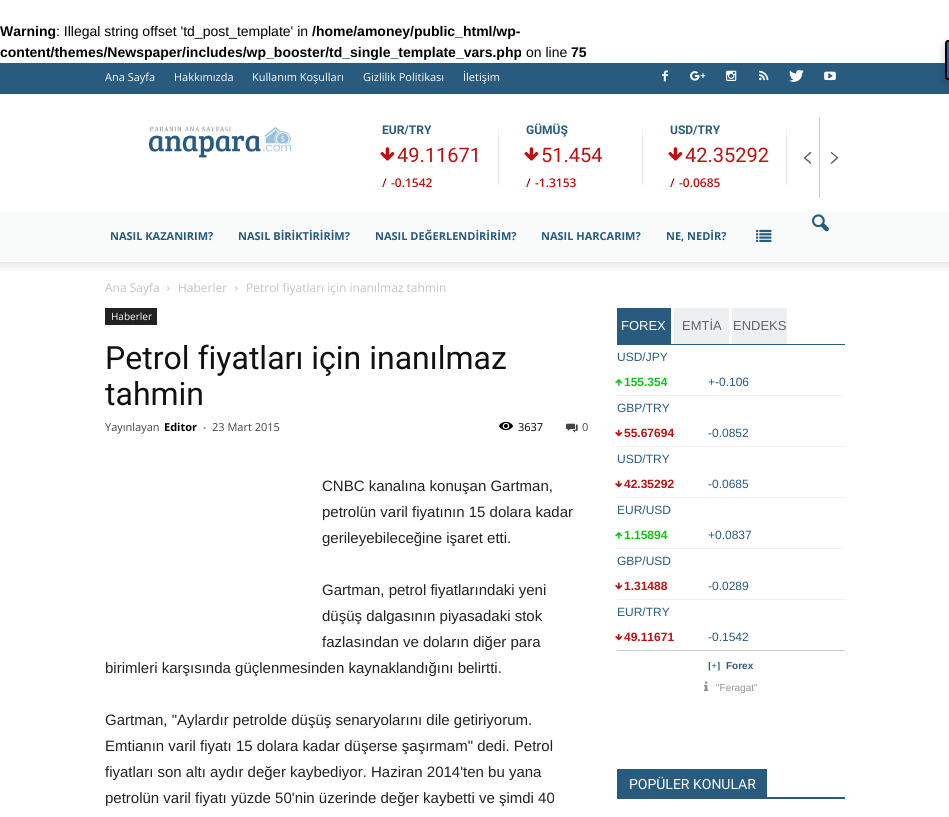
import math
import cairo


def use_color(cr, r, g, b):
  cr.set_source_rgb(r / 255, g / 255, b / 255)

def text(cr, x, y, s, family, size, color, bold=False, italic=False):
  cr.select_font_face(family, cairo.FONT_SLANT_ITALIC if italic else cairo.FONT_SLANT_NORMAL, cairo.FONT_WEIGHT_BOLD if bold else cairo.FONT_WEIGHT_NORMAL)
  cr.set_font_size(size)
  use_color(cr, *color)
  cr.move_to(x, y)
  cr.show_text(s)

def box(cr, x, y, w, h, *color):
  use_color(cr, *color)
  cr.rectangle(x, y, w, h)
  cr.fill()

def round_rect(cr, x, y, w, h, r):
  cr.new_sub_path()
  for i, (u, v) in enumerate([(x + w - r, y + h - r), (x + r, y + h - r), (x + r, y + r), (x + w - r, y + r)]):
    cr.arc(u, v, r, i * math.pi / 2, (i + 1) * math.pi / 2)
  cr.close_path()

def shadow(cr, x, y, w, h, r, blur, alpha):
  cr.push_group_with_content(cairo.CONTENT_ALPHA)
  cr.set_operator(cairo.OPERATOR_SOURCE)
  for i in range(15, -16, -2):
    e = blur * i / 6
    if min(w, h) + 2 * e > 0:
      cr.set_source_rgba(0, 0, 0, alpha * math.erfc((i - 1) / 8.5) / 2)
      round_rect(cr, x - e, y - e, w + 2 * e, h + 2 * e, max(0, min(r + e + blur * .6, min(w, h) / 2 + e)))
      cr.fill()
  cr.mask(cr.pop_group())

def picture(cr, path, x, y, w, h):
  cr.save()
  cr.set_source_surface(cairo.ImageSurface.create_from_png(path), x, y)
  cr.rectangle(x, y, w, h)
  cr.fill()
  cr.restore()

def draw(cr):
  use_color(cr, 255, 255, 255)
  cr.paint()
  box(cr, 0, 63, 949, 31, 40, 91, 126)
  use_color(cr, 0, 0, 0)
  shadow(cr, 945, 44, 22, 40, 3, 5, 0.2)
  use_color(cr, 0, 115, 183)
  cr.new_path()
  cr.move_to(948, 41)
  cr.line_to(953, 41)
  cr.line_to(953, 79)
  cr.line_to(948, 79)
  cr.curve_to(947, 79, 946, 78, 946, 77)
  cr.line_to(946, 43)
  cr.curve_to(946, 42, 947, 41, 948, 41)
  cr.close_path()
  cr.fill_preserve()
  use_color(cr, 0, 0, 0)
  cr.stroke()
  picture(cr, "img_01.png", 662, 70, 6, 12)
  picture(cr, "img_02.png", 690, 71, 16, 10)
  picture(cr, "img_03.png", 726, 70, 11, 11)
  picture(cr, "img_04.png", 759, 70, 10, 11)
  picture(cr, "img_05.png", 789, 69, 15, 13)
  picture(cr, "img_06.png", 824, 71, 12, 10)
  picture(cr, "img_07.png", 149, 126, 143, 32)
  picture(cr, "img_08.png", 380, 147, 15, 14)
  box(cr, 498, 130, 1, 56, 238, 239, 241)
  picture(cr, "img_08.png", 524, 147, 15, 14)
  box(cr, 642, 130, 1, 56, 238, 239, 241)
  picture(cr, "img_08.png", 668, 147, 15, 14)
  box(cr, 786, 130, 1, 56, 238, 239, 241)
  box(cr, 819, 118, 1, 80, 204, 204, 204)
  picture(cr, "img_09.png", 803, 151, 9, 13)
  picture(cr, "img_10.png", 830, 152, 9, 12)
  box(cr, 0, 212, 949, 50, 249, 251, 251)
  picture(cr, "img_11.png", 812, 214, 17, 18)
  picture(cr, "img_12.png", 756, 229, 16, 13)
  picture(cr, "img_13.png", 0, 262, 949, 9)
  picture(cr, "img_14.png", 167, 286, 3, 5)
  picture(cr, "img_14.png", 235, 286, 3, 5)
  box(cr, 105, 308, 52, 17, 34, 34, 34)
  picture(cr, "img_15.png", 499, 421, 14, 10)
  picture(cr, "img_16.png", 566, 423, 12, 10)
  box(cr, 617, 344, 228, 1, 40, 91, 126)
  box(cr, 617, 308, 54, 36, 40, 91, 126)
  box(cr, 674, 308, 55, 36, 238, 239, 241)
  box(cr, 732, 308, 55, 36, 238, 239, 241)
  box(cr, 617, 395, 228, 1, 238, 239, 241)
  picture(cr, "img_17.png", 615, 379, 8, 7)
  box(cr, 617, 446, 228, 1, 238, 239, 241)
  picture(cr, "img_18.png", 615, 429, 8, 8)
  box(cr, 617, 497, 228, 1, 238, 239, 241)
  picture(cr, "img_18.png", 615, 480, 8, 8)
  box(cr, 617, 548, 228, 1, 238, 239, 241)
  picture(cr, "img_17.png", 615, 532, 8, 7)
  box(cr, 617, 599, 228, 1, 238, 239, 241)
  picture(cr, "img_18.png", 615, 582, 8, 8)
  picture(cr, "img_18.png", 615, 633, 8, 8)
  box(cr, 617, 650, 228, 1, 204, 204, 204)
  picture(cr, "img_19.png", 704, 681, 5, 10)
  box(cr, 617, 797, 228, 2, 40, 91, 126)
  box(cr, 617, 769, 150, 28, 40, 91, 126)
  text(cr, 0, 36, "Warning", "Liberation Sans", 14, (0, 0, 0), bold=True)
  text(cr, 56, 36, ": Illegal string offset 'td_post_template' in", "Liberation Sans", 14, (0, 0, 0))
  text(cr, 312, 36, "/home/amoney/public_html/wp-", "Liberation Sans", 14, (0, 0, 0), bold=True)
  text(cr, 0, 57, "content/themes/Newspaper/includes/wp_booster/td_single_template_vars.php", "Liberation Sans", 14, (0, 0, 0), bold=True)
  text(cr, 526, 57, "on line", "Liberation Sans", 14, (0, 0, 0))
  text(cr, 571, 57, "75", "Liberation Sans", 14, (0, 0, 0), bold=True)
  text(cr, 105, 81, "Ana Sayfa", "Open Sans", 11, (249, 251, 251))
  text(cr, 174, 81, "Hakkımızda", "Open Sans", 11, (249, 251, 251))
  text(cr, 252, 81, "Kullanım Koşulları", "Open Sans", 11, (249, 251, 251))
  text(cr, 363, 81, "Gizlilik Politikası", "Open Sans", 11, (249, 251, 251))
  text(cr, 463, 81, "İletişim", "Open Sans", 11, (249, 251, 251))
  text(cr, 382, 134, "EUR/TRY", "Roboto", 12, (40, 91, 126), bold=True)
  text(cr, 397, 162, "49.11671", "Roboto", 20, (188, 18, 18))
  text(cr, 382, 187, "/", "Open Sans SemiBold", 12, (188, 18, 18))
  text(cr, 391, 187, "-0.1542", "Open Sans SemiBold", 12, (188, 18, 18))
  text(cr, 526, 134, "GÜMÜŞ", "Roboto", 12, (40, 91, 126), bold=True)
  text(cr, 541, 162, "51.454", "Roboto", 20, (188, 18, 18))
  text(cr, 526, 187, "/", "Open Sans SemiBold", 12, (188, 18, 18))
  text(cr, 535, 187, "-1.3153", "Open Sans SemiBold", 12, (188, 18, 18))
  text(cr, 670, 134, "USD/TRY", "Roboto", 12, (40, 91, 126), bold=True)
  text(cr, 685, 162, "42.35292", "Roboto", 20, (188, 18, 18))
  text(cr, 670, 187, "/", "Open Sans SemiBold", 12, (188, 18, 18))
  text(cr, 679, 187, "-0.0685", "Open Sans SemiBold", 12, (188, 18, 18))
  text(cr, 110, 240, "NASIL KAZANIRIM?", "Open Sans", 11, (40, 91, 126), bold=True)
  text(cr, 238, 240, "NASIL BİRİKTİRİRİM?", "Open Sans", 11, (40, 91, 126), bold=True)
  text(cr, 375, 240, "NASIL DEĞERLENDİRİRİM?", "Open Sans", 11, (40, 91, 126), bold=True)
  text(cr, 541, 240, "NASIL HARCARIM?", "Open Sans", 11, (40, 91, 126), bold=True)
  text(cr, 666, 240, "NE, NEDİR?", "Open Sans", 11, (40, 91, 126), bold=True)
  text(cr, 105, 292, "Ana Sayfa", "Open Sans", 12, (195, 195, 195))
  text(cr, 178, 292, "Haberler", "Open Sans", 12, (195, 195, 195))
  text(cr, 246, 292, "Petrol fiyatları için inanılmaz tahmin", "Open Sans", 12, (195, 195, 195))
  text(cr, 111, 320, "Haberler", "Open Sans", 10, (255, 255, 255))
  text(cr, 105, 369, "Petrol fiyatları için inanılmaz", "Roboto", 32, (17, 17, 17))
  text(cr, 105, 405, "tahmin", "Roboto", 32, (17, 17, 17))
  text(cr, 105, 431, "Yayınlayan", "Open Sans", 11, (68, 68, 68))
  text(cr, 164, 431, "Editor", "Open Sans", 11, (0, 0, 0), bold=True)
  text(cr, 203, 431, "-", "Open Sans", 11, (68, 68, 68))
  text(cr, 212, 431, "23 Mart 2015", "Open Sans", 11, (68, 68, 68))
  text(cr, 518, 431, "3637", "Open Sans", 11, (0, 0, 0))
  text(cr, 582, 431, "0", "Open Sans", 11, (68, 68, 68))
  text(cr, 322, 491, "CNBC kanalına konuşan Gartman,", "Liberation Sans", 15, (34, 34, 34))
  text(cr, 322, 517, "petrolün varil fiyatının 15 dolara kadar", "Liberation Sans", 15, (34, 34, 34))
  text(cr, 322, 543, "gerileyebileceğine işaret etti.", "Liberation Sans", 15, (34, 34, 34))
  text(cr, 322, 595, "Gartman, petrol fiyatlarındaki yeni", "Liberation Sans", 15, (34, 34, 34))
  text(cr, 322, 621, "düşüş dalgasının piyasadaki stok", "Liberation Sans", 15, (34, 34, 34))
  text(cr, 322, 647, "fazlasından ve doların diğer para", "Liberation Sans", 15, (34, 34, 34))
  text(cr, 105, 673, "birimleri karşısında güçlenmesinden kaynaklandığını belirtti.", "Liberation Sans", 15, (34, 34, 34))
  text(cr, 105, 725, "Gartman, \"Aylardır petrolde düşüş senaryolarını dile getiriyorum.", "Liberation Sans", 15, (34, 34, 34))
  text(cr, 105, 751, "Emtianın varil fiyatı 15 dolara kadar düşerse şaşırmam\" dedi. Petrol", "Liberation Sans", 15, (34, 34, 34))
  text(cr, 105, 777, "fiyatları son altı aydır değer kaybediyor. Haziran 2014'ten bu yana", "Liberation Sans", 15, (34, 34, 34))
  text(cr, 105, 803, "petrolün varil fiyatı yüzde 50'nin üzerinde değer kaybetti ve şimdi 40", "Liberation Sans", 15, (34, 34, 34))
  text(cr, 621, 330, "FOREX", "Liberation Sans", 13, (255, 255, 255))
  text(cr, 682, 330, "EMTİA", "Liberation Sans", 13, (100, 100, 100))
  text(cr, 733, 330, "ENDEKS", "Liberation Sans", 13, (100, 100, 100))
  text(cr, 617, 361, "USD/JPY", "Liberation Sans", 12, (40, 91, 126))
  text(cr, 624, 386, "155.354", "Liberation Sans", 12, (18, 195, 27), bold=True)
  text(cr, 708, 386, "+-0.106", "Liberation Sans", 12, (40, 91, 126))
  text(cr, 617, 412, "GBP/TRY", "Liberation Sans", 12, (40, 91, 126))
  text(cr, 624, 437, "55.67694", "Liberation Sans", 12, (188, 18, 18), bold=True)
  text(cr, 708, 437, "-0.0852", "Liberation Sans", 12, (40, 91, 126))
  text(cr, 617, 463, "USD/TRY", "Liberation Sans", 12, (40, 91, 126))
  text(cr, 624, 488, "42.35292", "Liberation Sans", 12, (188, 18, 18), bold=True)
  text(cr, 708, 488, "-0.0685", "Liberation Sans", 12, (40, 91, 126))
  text(cr, 617, 514, "EUR/USD", "Liberation Sans", 12, (40, 91, 126))
  text(cr, 624, 539, "1.15894", "Liberation Sans", 12, (18, 195, 27), bold=True)
  text(cr, 708, 539, "+0.0837", "Liberation Sans", 12, (40, 91, 126))
  text(cr, 617, 565, "GBP/USD", "Liberation Sans", 12, (40, 91, 126))
  text(cr, 624, 590, "1.31488", "Liberation Sans", 12, (188, 18, 18), bold=True)
  text(cr, 708, 590, "-0.0289", "Liberation Sans", 12, (40, 91, 126))
  text(cr, 617, 616, "EUR/TRY", "Liberation Sans", 12, (40, 91, 126))
  text(cr, 624, 641, "49.11671", "Liberation Sans", 12, (188, 18, 18), bold=True)
  text(cr, 708, 641, "-0.1542", "Liberation Sans", 12, (40, 91, 126))
  text(cr, 708, 669, "[+]", "Liberation Serif", 10, (40, 91, 126), bold=True)
  text(cr, 726, 669, "Forex", "Liberation Sans", 10, (40, 91, 126), bold=True)
  text(cr, 716, 691, "\"Feragat\"", "Liberation Sans", 10, (145, 145, 145))
  text(cr, 629, 789, "POPÜLER KONULAR", "Roboto", 14, (255, 255, 255))


surface = cairo.ImageSurface(cairo.FORMAT_RGB24, 949, 817)
cr = cairo.Context(surface)
options = cairo.FontOptions()
options.set_hint_metrics(cairo.HINT_METRICS_OFF)
options.set_hint_style(cairo.HINT_STYLE_NONE)
cr.set_font_options(options)
cr.set_miter_limit(4)
draw(cr)
surface.write_to_png("out.png")
